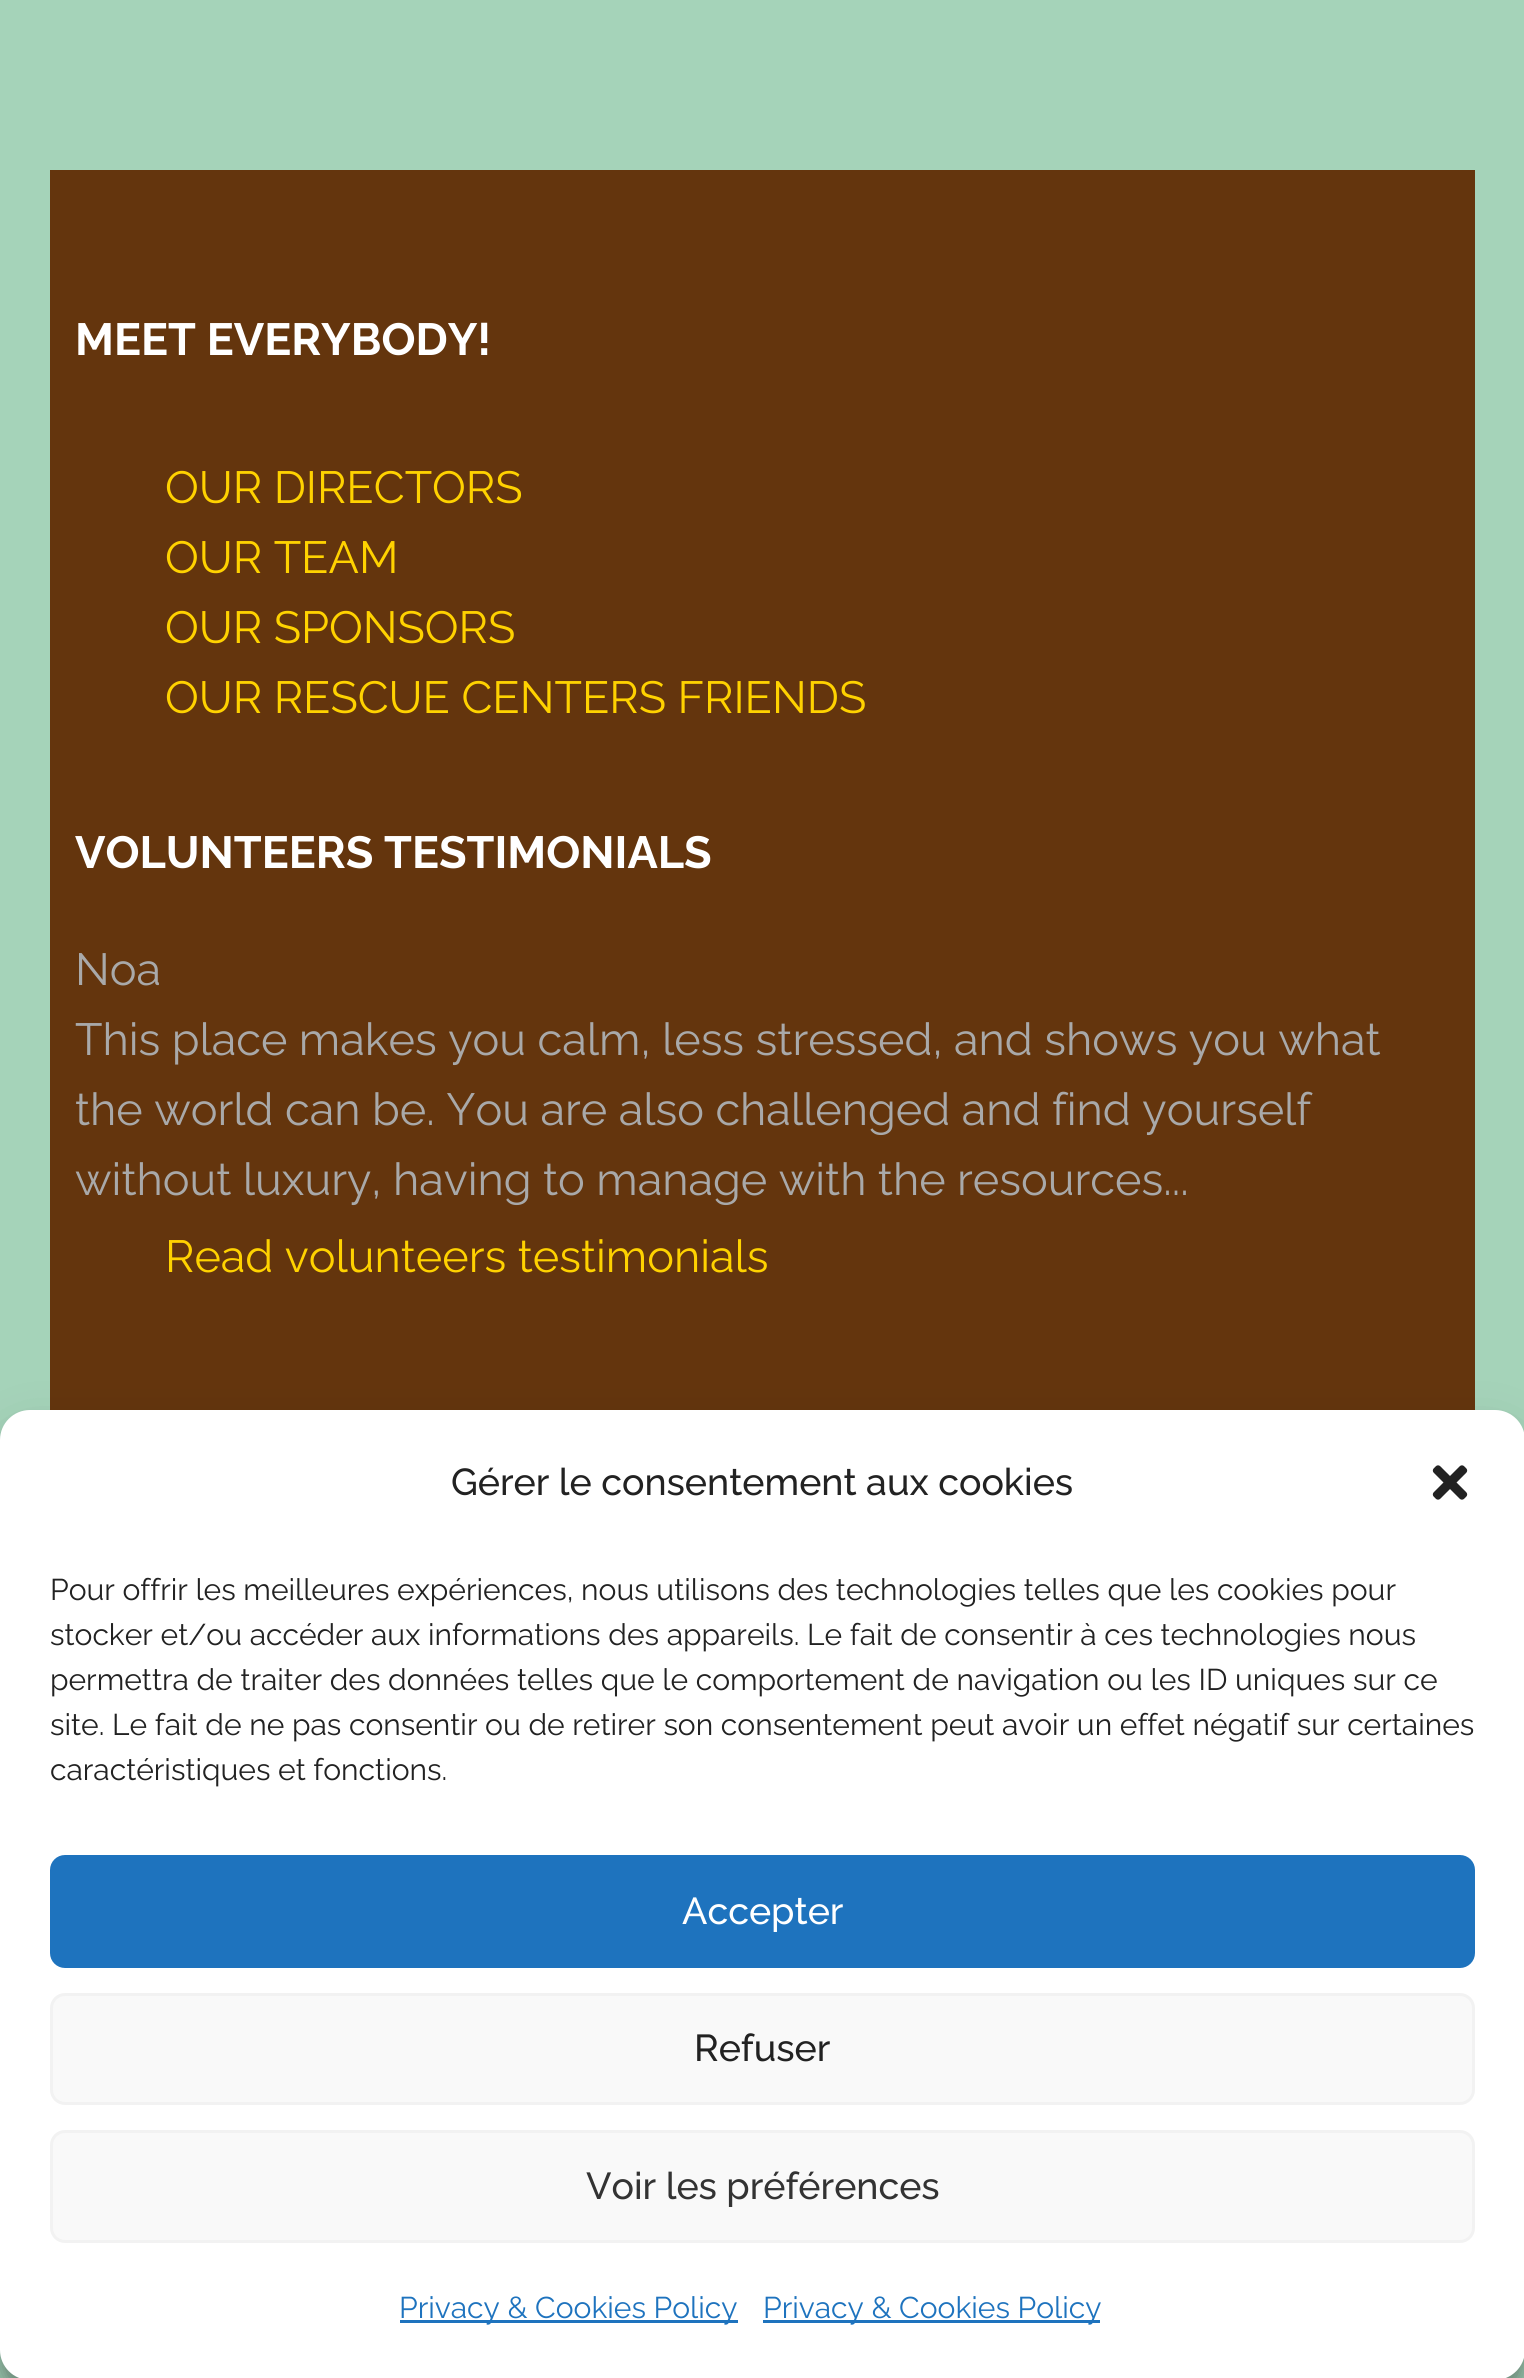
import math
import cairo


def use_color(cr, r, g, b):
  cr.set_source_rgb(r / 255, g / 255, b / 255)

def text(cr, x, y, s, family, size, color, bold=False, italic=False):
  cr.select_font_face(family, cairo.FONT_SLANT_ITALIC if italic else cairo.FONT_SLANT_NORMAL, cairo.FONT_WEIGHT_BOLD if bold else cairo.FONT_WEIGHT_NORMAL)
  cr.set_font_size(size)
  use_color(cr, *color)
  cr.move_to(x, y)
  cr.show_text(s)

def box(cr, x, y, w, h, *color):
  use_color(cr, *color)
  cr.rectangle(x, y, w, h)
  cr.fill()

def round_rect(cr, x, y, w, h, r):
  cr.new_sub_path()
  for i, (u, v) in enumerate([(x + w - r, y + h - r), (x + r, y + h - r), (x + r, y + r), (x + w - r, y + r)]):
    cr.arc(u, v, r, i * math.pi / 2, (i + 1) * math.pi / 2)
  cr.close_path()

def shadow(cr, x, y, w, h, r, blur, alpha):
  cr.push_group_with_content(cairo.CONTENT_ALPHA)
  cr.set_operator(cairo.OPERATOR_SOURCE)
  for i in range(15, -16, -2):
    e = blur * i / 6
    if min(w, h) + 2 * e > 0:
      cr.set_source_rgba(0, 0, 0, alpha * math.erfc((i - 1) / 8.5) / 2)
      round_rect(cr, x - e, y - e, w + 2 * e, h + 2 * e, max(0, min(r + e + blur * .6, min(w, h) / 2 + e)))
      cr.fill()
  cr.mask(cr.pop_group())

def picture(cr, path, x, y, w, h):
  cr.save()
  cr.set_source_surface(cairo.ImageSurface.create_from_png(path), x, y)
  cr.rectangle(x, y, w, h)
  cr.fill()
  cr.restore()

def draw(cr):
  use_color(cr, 165, 211, 185)
  cr.paint()
  box(cr, 50, 170, 1425, 1240, 100, 53, 13)
  use_color(cr, 0, 0, 0)
  shadow(cr, 0, 1425, 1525, 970, 30, 7.5, 0.23)
  shadow(cr, 0, 1435, 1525, 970, 30, 25, 0.19)
  use_color(cr, 255, 255, 255)
  round_rect(cr, 0, 1410, 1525, 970, 30)
  cr.fill()
  picture(cr, "img_01.png", 1432, 1465, 36, 35)
  use_color(cr, 30, 115, 190)
  round_rect(cr, 51.5, 1856.5, 1422, 110, 13.5)
  cr.fill_preserve()
  cr.set_line_width(3)
  cr.stroke()
  use_color(cr, 249, 249, 249)
  round_rect(cr, 51.5, 1994.5, 1422, 109, 13.5)
  cr.fill_preserve()
  use_color(cr, 242, 242, 242)
  cr.stroke()
  use_color(cr, 249, 249, 249)
  round_rect(cr, 51.5, 2131.5, 1422, 110, 13.5)
  cr.fill_preserve()
  use_color(cr, 242, 242, 242)
  cr.stroke()
  box(cr, 400, 2320, 338, 3, 30, 115, 190)
  box(cr, 763, 2320, 337, 3, 30, 115, 190)
  text(cr, 75, 355, "MEET EVERYBODY!", "Raleway", 45, (255, 255, 255), bold=True)
  text(cr, 165, 503, "OUR DIRECTORS", "Raleway", 45, (255, 210, 0))
  text(cr, 165, 573, "OUR TEAM", "Raleway", 45, (255, 210, 0))
  text(cr, 165, 643, "OUR SPONSORS", "Raleway", 45, (255, 210, 0))
  text(cr, 165, 713, "OUR RESCUE CENTERS FRIENDS", "Raleway", 45, (255, 210, 0))
  text(cr, 75, 868, "VOLUNTEERS TESTIMONIALS", "Raleway", 45, (255, 255, 255), bold=True)
  text(cr, 75, 985, "Noa", "Raleway", 45, (169, 169, 169))
  text(cr, 75, 1055, "This place makes you calm, less stressed, and shows you what", "Raleway", 45, (169, 169, 169))
  text(cr, 75, 1125, "the world can be. You are also challenged and find yourself", "Raleway", 45, (169, 169, 169))
  text(cr, 75, 1195, "without luxury, having to manage with the resources...", "Raleway", 45, (169, 169, 169))
  text(cr, 165, 1272, "Read volunteers testimonials", "Raleway", 45, (255, 210, 0))
  text(cr, 451, 1495, "Gérer le consentement aux cookies", "Raleway Medium", 37.5, (34, 34, 34))
  text(cr, 50, 1600, "Pour offrir les meilleures expériences, nous utilisons des technologies telles que les cookies pour", "Raleway", 30, (34, 34, 34))
  text(cr, 50, 1645, "stocker et/ou accéder aux informations des appareils. Le fait de consentir à ces technologies nous", "Raleway", 30, (34, 34, 34))
  text(cr, 50, 1690, "permettra de traiter des données telles que le comportement de navigation ou les ID uniques sur ce", "Raleway", 30, (34, 34, 34))
  text(cr, 50, 1735, "site. Le fait de ne pas consentir ou de retirer son consentement peut avoir un effet négatif sur certaines", "Raleway", 30, (34, 34, 34))
  text(cr, 50, 1780, "caractéristiques et fonctions.", "Raleway", 30, (34, 34, 34))
  text(cr, 682, 1924, "Accepter", "Raleway Medium", 37.5, (255, 255, 255))
  text(cr, 694, 2061, "Refuser", "Raleway Medium", 37.5, (34, 34, 34))
  text(cr, 586, 2199, "Voir les préférences", "Raleway Medium", 37.5, (51, 51, 51))
  text(cr, 399, 2318, "Privacy & Cookies Policy", "Raleway", 30, (30, 115, 190))
  text(cr, 763, 2318, "Privacy & Cookies Policy", "Raleway", 30, (30, 115, 190))


surface = cairo.ImageSurface(cairo.FORMAT_RGB24, 1524, 2378)
cr = cairo.Context(surface)
options = cairo.FontOptions()
options.set_hint_metrics(cairo.HINT_METRICS_OFF)
options.set_hint_style(cairo.HINT_STYLE_NONE)
cr.set_font_options(options)
cr.set_miter_limit(4)
draw(cr)
surface.write_to_png("out.png")
